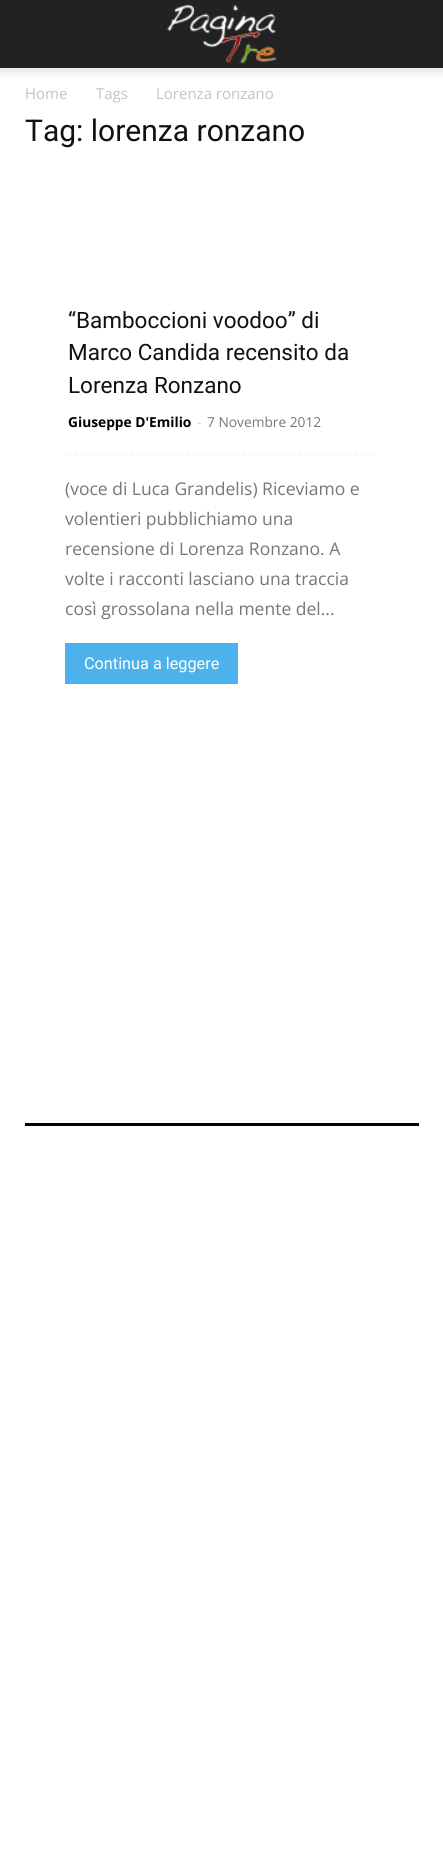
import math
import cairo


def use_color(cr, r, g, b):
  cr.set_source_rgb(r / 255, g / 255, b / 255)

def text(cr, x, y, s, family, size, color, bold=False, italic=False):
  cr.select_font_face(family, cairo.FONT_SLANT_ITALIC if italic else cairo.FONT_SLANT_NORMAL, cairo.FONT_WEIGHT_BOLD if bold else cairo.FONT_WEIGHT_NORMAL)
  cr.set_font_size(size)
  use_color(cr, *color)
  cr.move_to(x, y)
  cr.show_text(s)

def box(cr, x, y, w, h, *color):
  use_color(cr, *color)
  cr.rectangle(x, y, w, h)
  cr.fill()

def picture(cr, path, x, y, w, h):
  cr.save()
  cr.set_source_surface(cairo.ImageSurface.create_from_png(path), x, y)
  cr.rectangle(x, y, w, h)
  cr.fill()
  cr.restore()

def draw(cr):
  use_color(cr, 255, 255, 255)
  cr.paint()
  box(cr, 0, 0, 443, 68, 34, 34, 34)
  picture(cr, "img_01.png", 167, 4, 110, 60)
  picture(cr, "img_02.png", 0, 68, 443, 10)
  cr.new_path()
  cr.move_to(67.5, 454.5)
  cr.line_to(376, 454.5)
  use_color(cr, 241, 241, 241)
  cr.set_line_width(1.2)
  cr.set_dash([3.75, 2.48])
  cr.stroke()
  box(cr, 65, 643, 173, 41, 77, 178, 236)
  box(cr, 25, 1123, 394, 3, 0, 0, 0)
  text(cr, 25, 99, "Home", "Open Sans", 15, (195, 195, 195))
  text(cr, 96, 99, "Tags", "Open Sans", 15, (195, 195, 195))
  text(cr, 156, 99, "Lorenza ronzano", "Open Sans", 15, (195, 195, 195))
  text(cr, 25, 141, "Tag: lorenza ronzano", "Roboto", 30, (17, 17, 17))
  text(cr, 68, 328, "“Bamboccioni voodoo” di", "Roboto", 22.5, (17, 17, 17))
  text(cr, 68, 360, "Marco Candida recensito da", "Roboto", 22.5, (17, 17, 17))
  text(cr, 68, 393, "Lorenza Ronzano", "Roboto", 22.5, (17, 17, 17))
  text(cr, 68, 427, "Giuseppe D'Emilio", "Open Sans", 13.75, (0, 0, 0), bold=True)
  text(cr, 197, 427, "-", "Open Sans", 13.75, (204, 204, 204))
  text(cr, 207, 427, "7 Novembre 2012", "Open Sans", 13.75, (118, 118, 118))
  text(cr, 65, 495, "(voce di Luca Grandelis) Riceviamo e", "Open Sans", 17.5, (118, 118, 118))
  text(cr, 65, 525, "volentieri pubblichiamo una", "Open Sans", 17.5, (118, 118, 118))
  text(cr, 65, 555, "recensione di Lorenza Ronzano. A", "Open Sans", 17.5, (118, 118, 118))
  text(cr, 65, 585, "volte i racconti lasciano una traccia", "Open Sans", 17.5, (118, 118, 118))
  text(cr, 65, 615, "così grossolana nella mente del...", "Open Sans", 17.5, (118, 118, 118))
  text(cr, 84, 669, "Continua a leggere", "Roboto", 16.25, (255, 255, 255))


surface = cairo.ImageSurface(cairo.FORMAT_RGB24, 443, 1862)
cr = cairo.Context(surface)
options = cairo.FontOptions()
options.set_hint_metrics(cairo.HINT_METRICS_OFF)
options.set_hint_style(cairo.HINT_STYLE_NONE)
cr.set_font_options(options)
cr.set_miter_limit(4)
draw(cr)
surface.write_to_png("out.png")
